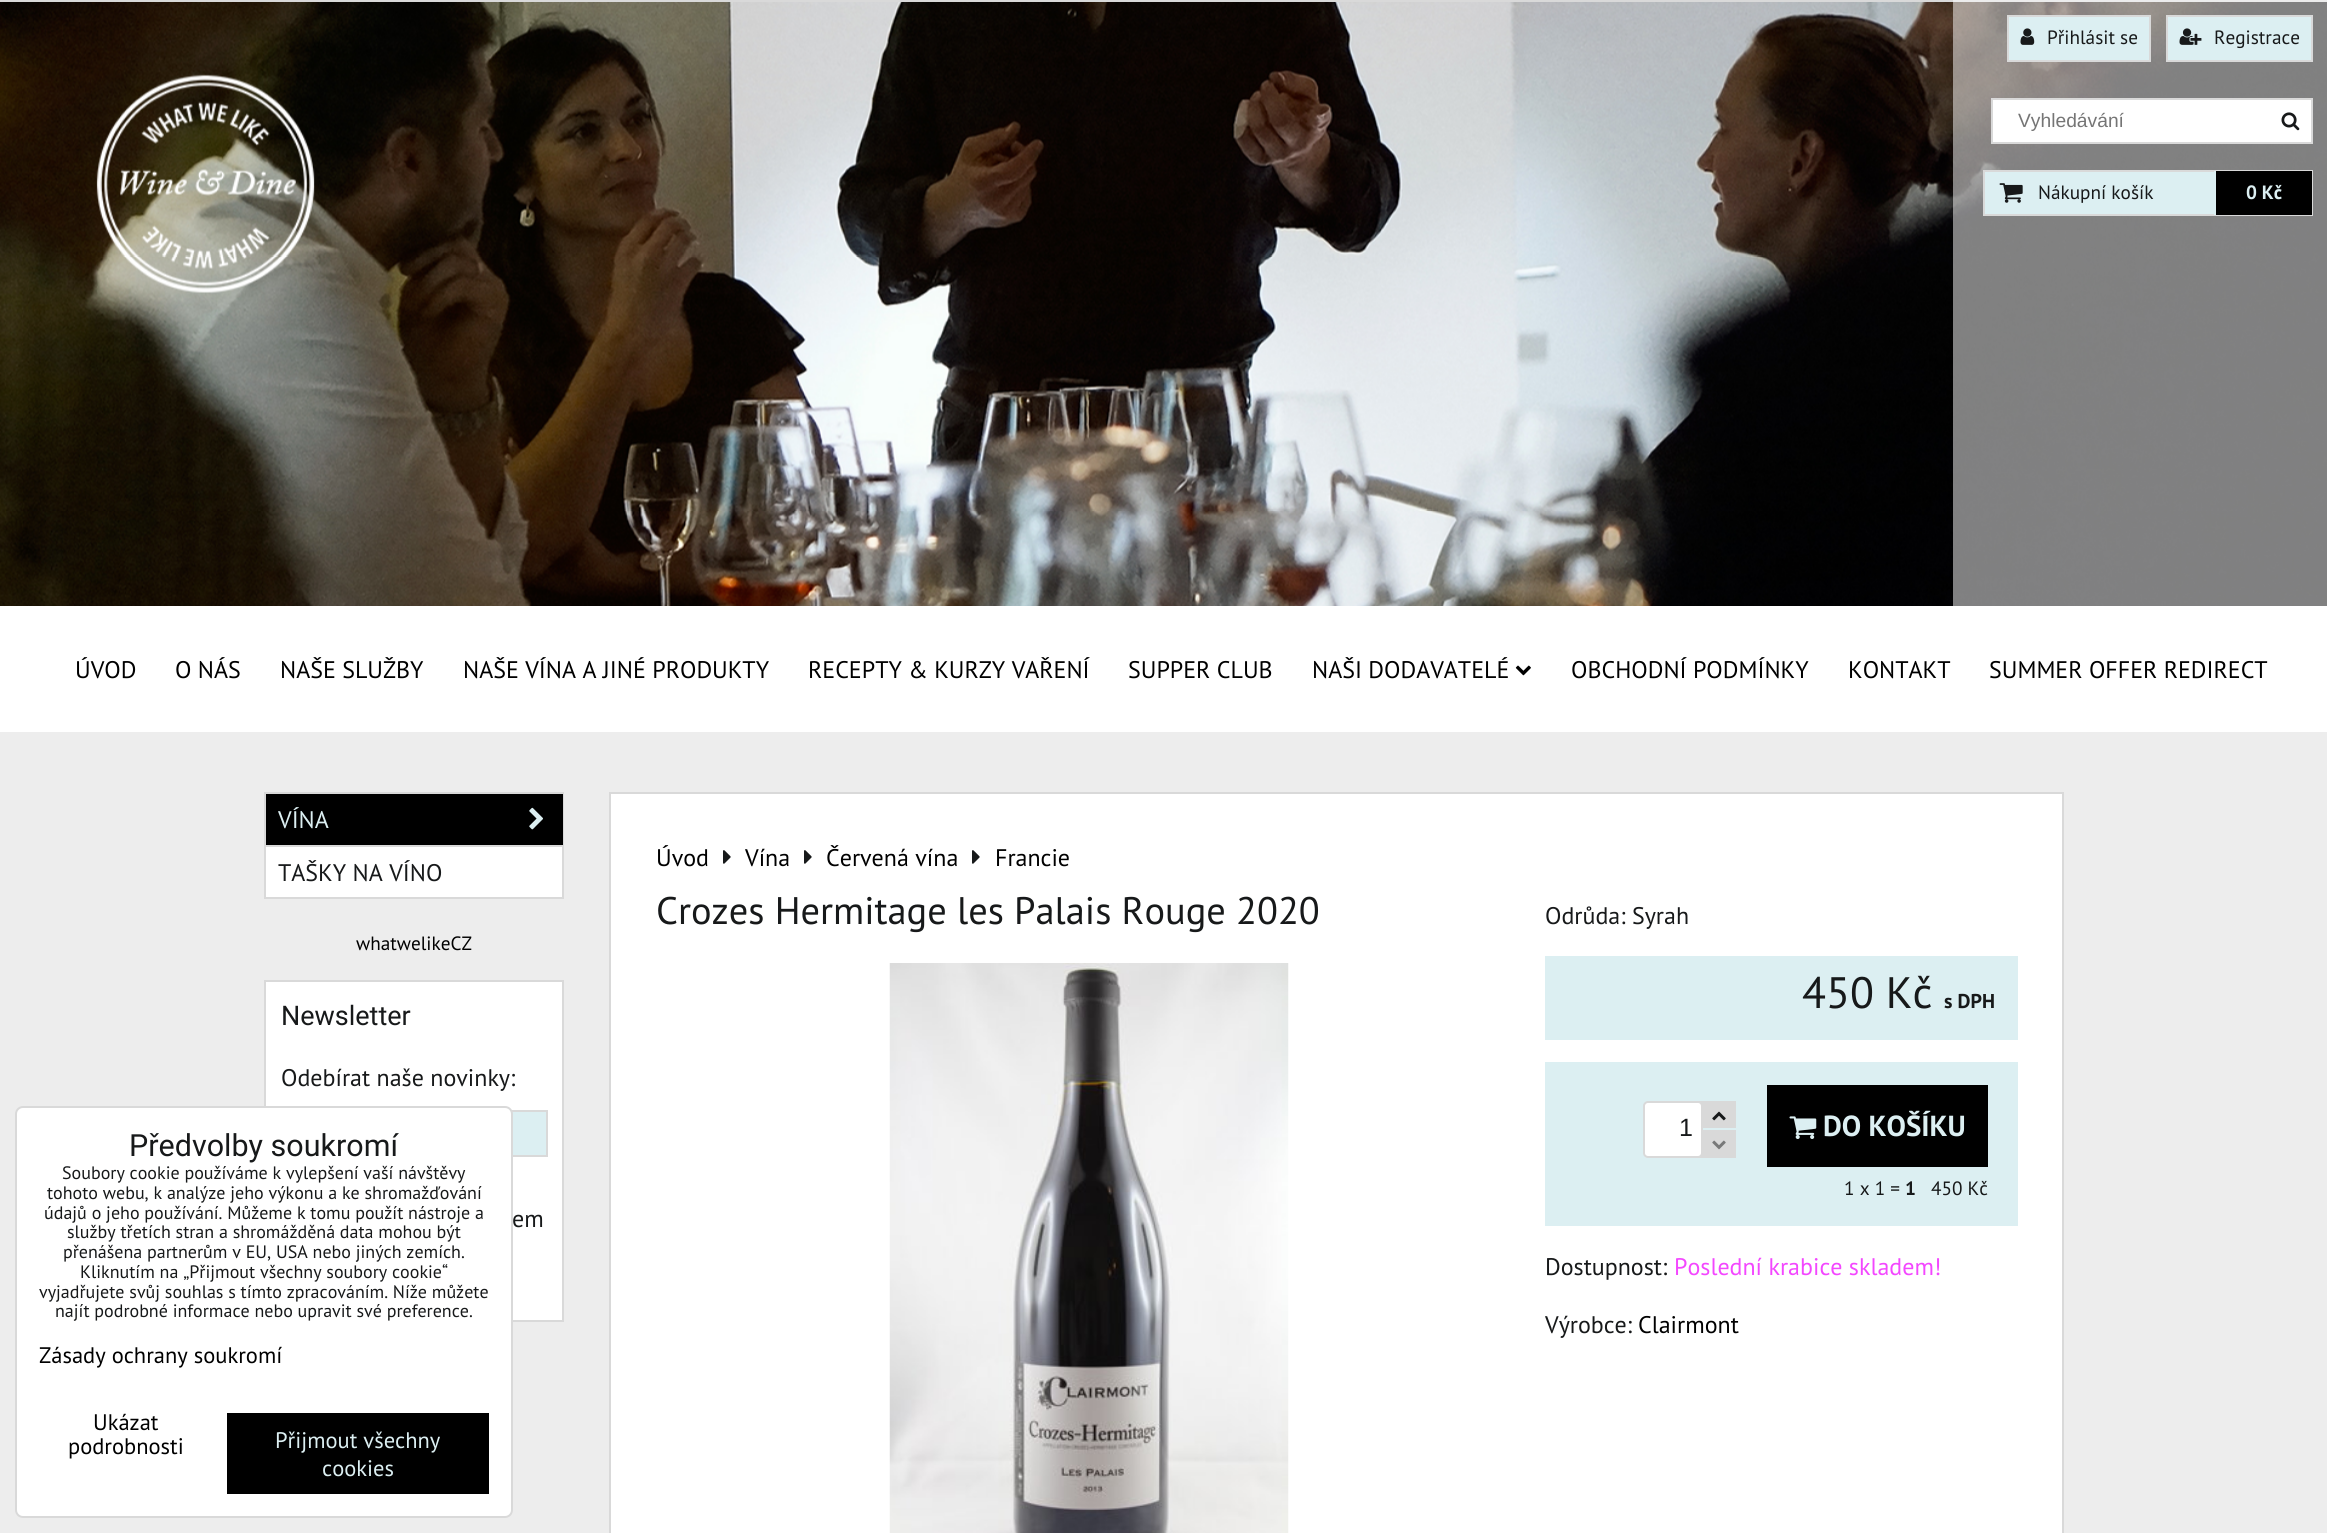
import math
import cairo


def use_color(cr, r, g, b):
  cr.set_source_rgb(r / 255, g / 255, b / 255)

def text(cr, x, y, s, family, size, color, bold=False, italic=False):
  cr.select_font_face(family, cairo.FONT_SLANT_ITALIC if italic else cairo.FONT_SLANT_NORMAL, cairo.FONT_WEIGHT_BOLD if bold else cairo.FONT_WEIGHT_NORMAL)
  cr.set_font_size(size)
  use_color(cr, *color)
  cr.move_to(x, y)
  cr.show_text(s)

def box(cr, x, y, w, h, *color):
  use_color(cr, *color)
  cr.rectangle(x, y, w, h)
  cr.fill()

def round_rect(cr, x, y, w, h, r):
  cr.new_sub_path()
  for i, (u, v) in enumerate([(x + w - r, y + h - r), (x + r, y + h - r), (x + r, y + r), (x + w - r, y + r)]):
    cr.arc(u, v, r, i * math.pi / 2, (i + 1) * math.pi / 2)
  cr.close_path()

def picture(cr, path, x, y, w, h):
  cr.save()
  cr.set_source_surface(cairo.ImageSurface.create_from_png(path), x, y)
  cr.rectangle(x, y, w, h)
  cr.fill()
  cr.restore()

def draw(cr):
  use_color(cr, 237, 237, 237)
  cr.paint()
  box(cr, 0, 0, 2327, 2, 217, 217, 217)
  picture(cr, "img_01.png", 0, 2, 2327, 604)
  cr.set_source_rgba(1, 1, 1, 0.5)
  cr.rectangle(1953, 0, 374, 606)
  cr.fill()
  use_color(cr, 220, 239, 242)
  cr.rectangle(2008, 16, 142, 45)
  cr.fill_preserve()
  use_color(cr, 217, 217, 217)
  cr.stroke()
  picture(cr, "img_02.png", 2020, 28, 15, 17)
  use_color(cr, 220, 239, 242)
  cr.rectangle(2167, 16, 145, 45)
  cr.fill_preserve()
  use_color(cr, 217, 217, 217)
  cr.stroke()
  picture(cr, "img_03.png", 2179, 28, 23, 17)
  use_color(cr, 255, 255, 255)
  cr.rectangle(1992, 99, 320, 44)
  cr.fill_preserve()
  use_color(cr, 217, 217, 217)
  cr.stroke()
  picture(cr, "img_04.png", 2281, 112, 19, 19)
  box(cr, 1985, 172, 229, 42, 220, 239, 242)
  cr.rectangle(1984, 171, 328, 44)
  use_color(cr, 217, 217, 217)
  cr.stroke()
  picture(cr, "img_05.png", 1999, 183, 24, 20)
  box(cr, 2216, 171, 96, 44, 0, 0, 0)
  box(cr, 2214, 171, 2, 44, 220, 239, 242)
  box(cr, 0, 606, 2327, 126, 255, 255, 255)
  picture(cr, "img_06.png", 1515, 665, 16, 11)
  box(cr, 266, 847, 296, 50, 255, 255, 255)
  cr.rectangle(265, 793, 298, 105)
  use_color(cr, 217, 217, 217)
  cr.stroke()
  box(cr, 266, 794, 297, 51, 0, 0, 0)
  box(cr, 266, 845, 297, 2, 217, 217, 217)
  picture(cr, "img_07.png", 529, 807, 14, 23)
  use_color(cr, 255, 255, 255)
  cr.rectangle(265, 981, 298, 340)
  cr.fill_preserve()
  use_color(cr, 217, 217, 217)
  cr.stroke()
  box(cr, 512, 1112, 34, 43, 220, 239, 242)
  cr.rectangle(282, 1111, 265, 45)
  use_color(cr, 217, 217, 217)
  cr.stroke()
  use_color(cr, 255, 255, 255)
  cr.rectangle(610, 793, 1453, 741)
  cr.fill_preserve()
  use_color(cr, 217, 217, 217)
  cr.stroke()
  picture(cr, "img_08.png", 723, 850, 8, 14)
  picture(cr, "img_08.png", 804, 850, 8, 14)
  picture(cr, "img_08.png", 972, 850, 8, 14)
  picture(cr, "img_09.png", 889, 963, 400, 570)
  box(cr, 1545, 956, 473, 84, 220, 239, 242)
  box(cr, 1545, 1062, 473, 164, 220, 239, 242)
  box(cr, 1698, 1101, 38, 57, 217, 217, 217)
  use_color(cr, 255, 255, 255)
  round_rect(cr, 1644, 1102, 58, 55, 4)
  cr.fill_preserve()
  use_color(cr, 217, 217, 217)
  cr.stroke()
  picture(cr, "img_10.png", 1712, 1111, 14, 10)
  box(cr, 1703, 1128, 33, 2, 220, 239, 242)
  picture(cr, "img_11.png", 1712, 1140, 14, 10)
  box(cr, 1767, 1085, 221, 82, 0, 0, 0)
  picture(cr, "img_12.png", 1789, 1116, 28, 23)
  use_color(cr, 255, 255, 255)
  round_rect(cr, 16, 1107, 496, 410, 7)
  cr.fill_preserve()
  use_color(cr, 217, 217, 217)
  cr.stroke()
  box(cr, 227, 1413, 262, 81, 0, 0, 0)
  text(cr, 2047, 44, "Přihlásit se", "PT Sans", 19.25, (23, 25, 26))
  text(cr, 2214, 44, "Registrace", "PT Sans", 19.25, (23, 25, 26))
  text(cr, 2018, 127, "Vyhledávání", "Liberation Sans", 19.25, (117, 117, 117))
  text(cr, 2038, 199, "Nákupní košík", "PT Sans", 19.25, (23, 25, 26))
  text(cr, 2246, 199, "0 Kč", "PT Sans", 19.25, (220, 239, 242), bold=True)
  text(cr, 75, 678, "ÚVOD", "PT Sans", 24, (0, 0, 0))
  text(cr, 175, 678, "O NÁS", "PT Sans", 24, (0, 0, 0))
  text(cr, 280, 678, "NAŠE SLUŽBY", "PT Sans", 24, (0, 0, 0))
  text(cr, 463, 678, "NAŠE VÍNA A JINÉ PRODUKTY", "PT Sans", 24, (0, 0, 0))
  text(cr, 808, 678, "RECEPTY & KURZY VAŘENÍ", "PT Sans", 24, (0, 0, 0))
  text(cr, 1128, 678, "SUPPER CLUB", "PT Sans", 24, (0, 0, 0))
  text(cr, 1312, 678, "NAŠI DODAVATELÉ", "PT Sans", 24, (0, 0, 0))
  text(cr, 1571, 678, "OBCHODNÍ PODMÍNKY", "PT Sans", 24, (0, 0, 0))
  text(cr, 1848, 678, "KONTAKT", "PT Sans", 24, (0, 0, 0))
  text(cr, 1989, 678, "SUMMER OFFER REDIRECT", "PT Sans", 24, (0, 0, 0))
  text(cr, 278, 828, "VÍNA", "PT Sans", 24, (220, 239, 242))
  text(cr, 278, 881, "TAŠKY NA VÍNO", "PT Sans", 24, (23, 25, 26))
  text(cr, 356, 950, "whatwelikeCZ", "PT Sans", 19.25, (0, 0, 0))
  text(cr, 281, 1025, "Newsletter", "Roboto", 27, (23, 25, 26))
  text(cr, 281, 1086, "Odebírat naše novinky:", "PT Sans", 24, (23, 25, 26))
  text(cr, 512, 1227, "em", "PT Sans", 24, (23, 25, 26))
  text(cr, 656, 866, "Úvod", "PT Sans", 24, (0, 0, 0))
  text(cr, 745, 866, "Vína", "PT Sans", 24, (0, 0, 0))
  text(cr, 826, 866, "Červená vína", "PT Sans", 24, (0, 0, 0))
  text(cr, 995, 866, "Francie", "PT Sans", 24, (0, 0, 0))
  text(cr, 656, 924, "Crozes Hermitage les Palais Rouge 2020", "PT Sans", 38.4, (23, 25, 26))
  text(cr, 1545, 924, "Odrůda: Syrah", "PT Sans", 24, (23, 25, 26))
  text(cr, 1802, 1008, "450 Kč", "PT Sans", 44, (23, 25, 26))
  text(cr, 1944, 1008, "s DPH", "PT Sans", 20, (23, 25, 26), bold=True)
  text(cr, 1679, 1136, "1", "Liberation Sans", 25, (23, 25, 26))
  text(cr, 1823, 1136, "DO KOŠÍKU", "PT Sans", 29, (220, 239, 242), bold=True)
  text(cr, 1844, 1195, "1 x 1 =", "PT Sans", 19.25, (23, 25, 26))
  text(cr, 1905, 1195, "1", "PT Sans", 19.25, (23, 25, 26), bold=True)
  text(cr, 1931, 1195, "450 Kč", "PT Sans", 19.25, (23, 25, 26))
  text(cr, 1545, 1275, "Dostupnost:", "PT Sans", 24, (23, 25, 26))
  text(cr, 1674, 1275, "Poslední krabice skladem!", "PT Sans", 24, (243, 71, 255))
  text(cr, 1545, 1333, "Výrobce:", "PT Sans", 24, (23, 25, 26))
  text(cr, 1638, 1333, "Clairmont", "PT Sans", 24, (0, 0, 0))
  text(cr, 129, 1156, "Předvolby soukromí", "Roboto", 30.5, (23, 25, 26))
  text(cr, 62, 1179, "Soubory cookie používáme k vylepšení vaší návštěvy", "PT Sans", 18, (23, 25, 26))
  text(cr, 47, 1199, "tohoto webu, k analýze jeho výkonu a ke shromažďování", "PT Sans", 18, (23, 25, 26))
  text(cr, 44, 1219, "údajů o jeho používání. Můžeme k tomu použít nástroje a", "PT Sans", 18, (23, 25, 26))
  text(cr, 67, 1238, "služby třetích stran a shromážděná data mohou být", "PT Sans", 18, (23, 25, 26))
  text(cr, 63, 1258, "přenášena partnerům v EU, USA nebo jiných zemích.", "PT Sans", 18, (23, 25, 26))
  text(cr, 80, 1278, "Kliknutím na „Přijmout všechny soubory cookie“", "PT Sans", 18, (23, 25, 26))
  text(cr, 39, 1298, "vyjadřujete svůj souhlas s tímto zpracováním. Níže můžete", "PT Sans", 18, (23, 25, 26))
  text(cr, 55, 1317, "najít podrobné informace nebo upravit své preference.", "PT Sans", 18, (23, 25, 26))
  text(cr, 39, 1363, "Zásady ochrany soukromí", "PT Sans", 22.5, (0, 0, 0))
  text(cr, 93, 1430, "Ukázat", "PT Sans", 22.5, (0, 0, 0))
  text(cr, 68, 1454, "podrobnosti", "PT Sans", 22.5, (0, 0, 0))
  text(cr, 275, 1448, "Přijmout všechny", "PT Sans", 22.5, (220, 239, 242))
  text(cr, 322, 1476, "cookies", "PT Sans", 22.5, (220, 239, 242))


surface = cairo.ImageSurface(cairo.FORMAT_RGB24, 2327, 1533)
cr = cairo.Context(surface)
options = cairo.FontOptions()
options.set_hint_metrics(cairo.HINT_METRICS_OFF)
options.set_hint_style(cairo.HINT_STYLE_NONE)
cr.set_font_options(options)
cr.set_miter_limit(4)
draw(cr)
surface.write_to_png("out.png")
